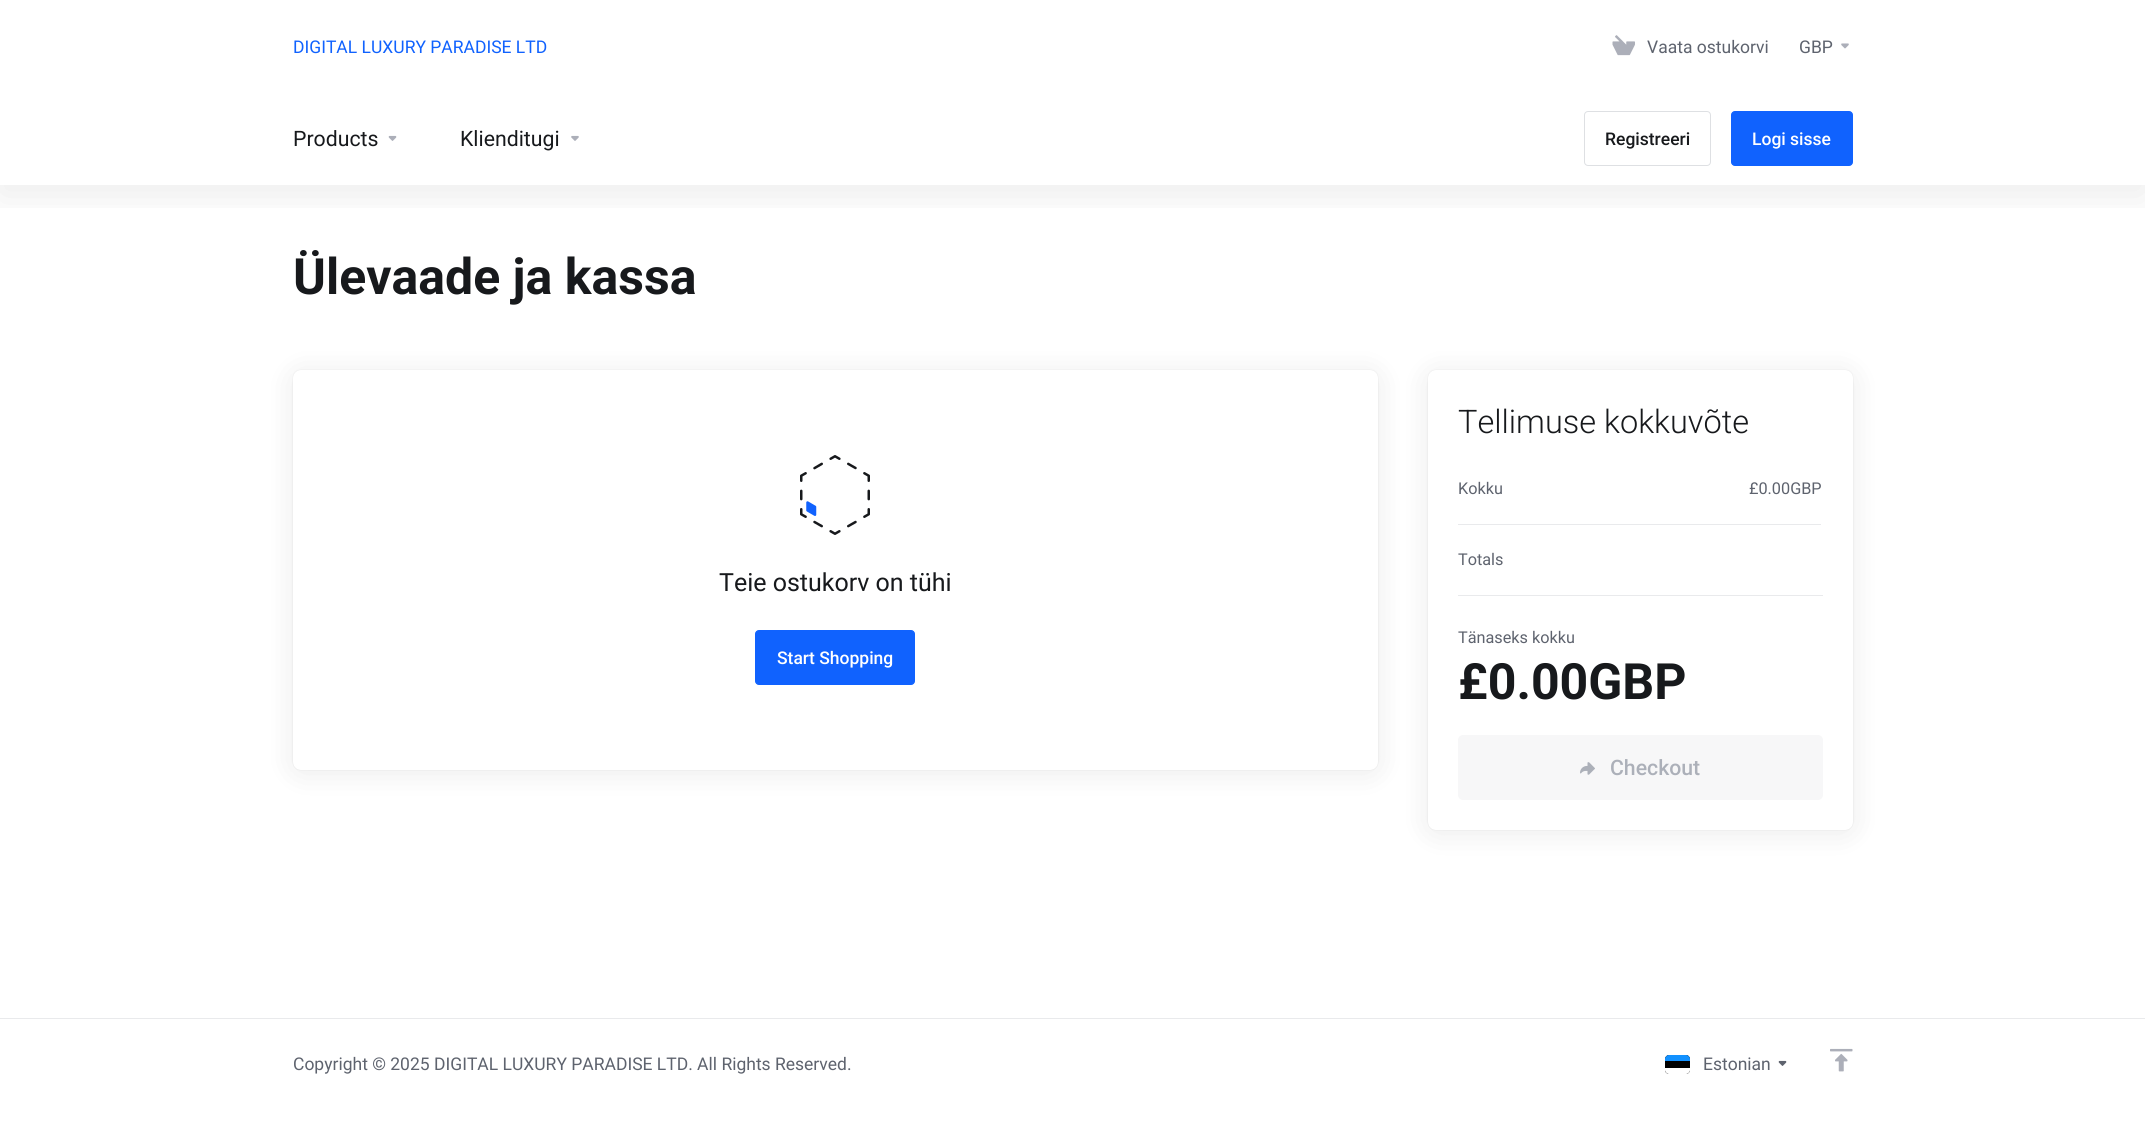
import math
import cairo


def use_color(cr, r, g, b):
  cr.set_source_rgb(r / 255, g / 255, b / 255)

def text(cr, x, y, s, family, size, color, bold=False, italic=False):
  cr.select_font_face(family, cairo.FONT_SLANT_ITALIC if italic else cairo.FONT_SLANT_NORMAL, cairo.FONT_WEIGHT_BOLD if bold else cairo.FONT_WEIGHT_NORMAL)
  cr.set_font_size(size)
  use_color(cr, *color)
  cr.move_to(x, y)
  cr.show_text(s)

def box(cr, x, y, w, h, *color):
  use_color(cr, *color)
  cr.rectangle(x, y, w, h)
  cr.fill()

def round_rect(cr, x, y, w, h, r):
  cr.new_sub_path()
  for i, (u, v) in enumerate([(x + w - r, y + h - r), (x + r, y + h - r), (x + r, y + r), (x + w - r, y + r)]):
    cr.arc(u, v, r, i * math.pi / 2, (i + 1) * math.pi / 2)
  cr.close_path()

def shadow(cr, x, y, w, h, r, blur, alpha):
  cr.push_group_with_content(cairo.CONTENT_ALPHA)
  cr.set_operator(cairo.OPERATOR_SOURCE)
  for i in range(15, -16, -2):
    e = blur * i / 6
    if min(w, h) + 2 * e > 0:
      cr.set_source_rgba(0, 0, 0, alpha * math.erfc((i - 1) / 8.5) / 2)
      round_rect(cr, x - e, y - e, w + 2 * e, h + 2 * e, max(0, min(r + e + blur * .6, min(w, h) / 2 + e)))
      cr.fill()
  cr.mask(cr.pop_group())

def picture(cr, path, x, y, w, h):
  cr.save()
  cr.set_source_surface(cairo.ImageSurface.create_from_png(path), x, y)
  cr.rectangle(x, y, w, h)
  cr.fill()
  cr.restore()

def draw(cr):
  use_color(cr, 255, 255, 255)
  cr.paint()
  cr.save()
  cr.rectangle(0, 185, 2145, 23)
  cr.clip()
  use_color(cr, 0, 0, 0)
  shadow(cr, 0, 10, 2145, 185, 0, 20, 0.08)
  cr.restore()
  picture(cr, "img_01.png", 1612, 35, 23, 21)
  picture(cr, "img_02.png", 1841, 43, 8, 6)
  picture(cr, "img_03.png", 388, 135, 9, 6)
  picture(cr, "img_04.png", 571, 135, 8, 6)
  round_rect(cr, 1584.5, 111.5, 126, 54, 3.5)
  use_color(cr, 222, 224, 227)
  cr.set_line_width(1)
  cr.stroke()
  use_color(cr, 16, 98, 254)
  round_rect(cr, 1731.5, 111.5, 121, 54, 3.5)
  cr.fill_preserve()
  cr.stroke()
  use_color(cr, 0, 0, 0)
  shadow(cr, 293, 373, 1085, 400, 8, 15, 0.08)
  shadow(cr, 293, 370, 1085, 400, 8, 0.5, 0.1)
  use_color(cr, 255, 255, 255)
  round_rect(cr, 293, 370, 1085, 400, 8)
  cr.fill()
  picture(cr, "img_05.png", 800, 455, 70, 80)
  use_color(cr, 16, 98, 254)
  round_rect(cr, 755.5, 630.5, 159, 54, 3.5)
  cr.fill_preserve()
  cr.stroke()
  use_color(cr, 0, 0, 0)
  shadow(cr, 1428, 373, 425, 460, 8, 15, 0.08)
  shadow(cr, 1428, 370, 425, 460, 8, 0.5, 0.1)
  use_color(cr, 255, 255, 255)
  round_rect(cr, 1428, 370, 425, 460, 8)
  cr.fill()
  box(cr, 1458, 524, 363, 1, 233, 234, 236)
  box(cr, 1458, 595, 365, 1, 233, 234, 236)
  use_color(cr, 247, 247, 248)
  round_rect(cr, 1458, 735, 365, 65, 5)
  cr.fill()
  picture(cr, "img_06.png", 1580, 762, 15, 13)
  box(cr, 0, 1018, 2145, 1, 233, 234, 236)
  use_color(cr, 0, 0, 0)
  round_rect(cr, 1665, 1055, 25, 19, 4)
  cr.fill()
  use_color(cr, 255, 255, 255)
  cr.new_path()
  cr.move_to(1665, 1068)
  cr.line_to(1690, 1068)
  cr.line_to(1690, 1070)
  cr.curve_to(1690, 1072, 1688, 1074, 1686, 1074)
  cr.line_to(1669, 1074)
  cr.curve_to(1667, 1074, 1665, 1072, 1665, 1070)
  cr.close_path()
  cr.fill()
  use_color(cr, 18, 145, 255)
  cr.new_path()
  cr.move_to(1669, 1055)
  cr.line_to(1686, 1055)
  cr.curve_to(1688, 1055, 1690, 1057, 1690, 1059)
  cr.line_to(1690, 1061)
  cr.line_to(1665, 1061)
  cr.line_to(1665, 1059)
  cr.curve_to(1665, 1057, 1667, 1055, 1669, 1055)
  cr.close_path()
  cr.fill()
  picture(cr, "img_07.png", 1778, 1060, 9, 6)
  picture(cr, "img_08.png", 1830, 1048, 23, 24)
  text(cr, 293, 53, "DIGITAL LUXURY PARADISE LTD", "Roboto", 17.5, (16, 98, 254))
  text(cr, 1647, 53, "Vaata ostukorvi", "Roboto", 17.5, (94, 99, 110))
  text(cr, 1799, 53, "GBP", "Roboto", 17.5, (94, 99, 110))
  text(cr, 293, 146, "Products", "Roboto", 21.25, (23, 25, 28))
  text(cr, 460, 146, "Klienditugi", "Roboto", 21.25, (23, 25, 28))
  text(cr, 1605, 145, "Registreeri", "Roboto Medium", 17.5, (23, 25, 28))
  text(cr, 1752, 145, "Logi sisse", "Roboto Medium", 17.5, (255, 255, 255))
  text(cr, 293, 294, "Ülevaade ja kassa", "Roboto", 50, (23, 25, 28), bold=True)
  text(cr, 719, 591, "Teie ostukorv on tühi", "Roboto", 25, (23, 25, 28))
  text(cr, 777, 664, "Start Shopping", "Roboto Medium", 17.5, (255, 255, 255))
  text(cr, 1458, 433, "Tellimuse kokkuvõte", "Roboto Light", 32.5, (23, 25, 28))
  text(cr, 1458, 494, "Kokku", "Roboto", 16.25, (94, 99, 110))
  text(cr, 1749, 494, "£0.00GBP", "Roboto", 16.25, (94, 99, 110))
  text(cr, 1458, 565, "Totals", "Roboto", 16.25, (94, 99, 110))
  text(cr, 1458, 643, "Tänaseks kokku", "Roboto", 16.25, (94, 99, 110))
  text(cr, 1458, 699, "£0.00GBP", "Roboto", 50, (23, 25, 28), bold=True)
  text(cr, 1610, 775, "Checkout", "Roboto Medium", 21.25, (172, 176, 185))
  text(cr, 293, 1070, "Copyright © 2025 DIGITAL LUXURY PARADISE LTD. All Rights Reserved.", "Roboto", 17.5, (94, 99, 110))
  text(cr, 1703, 1070, "Estonian", "Roboto", 17.5, (94, 99, 110))


surface = cairo.ImageSurface(cairo.FORMAT_RGB24, 2145, 1126)
cr = cairo.Context(surface)
options = cairo.FontOptions()
options.set_hint_metrics(cairo.HINT_METRICS_OFF)
options.set_hint_style(cairo.HINT_STYLE_NONE)
cr.set_font_options(options)
cr.set_miter_limit(4)
draw(cr)
surface.write_to_png("out.png")
